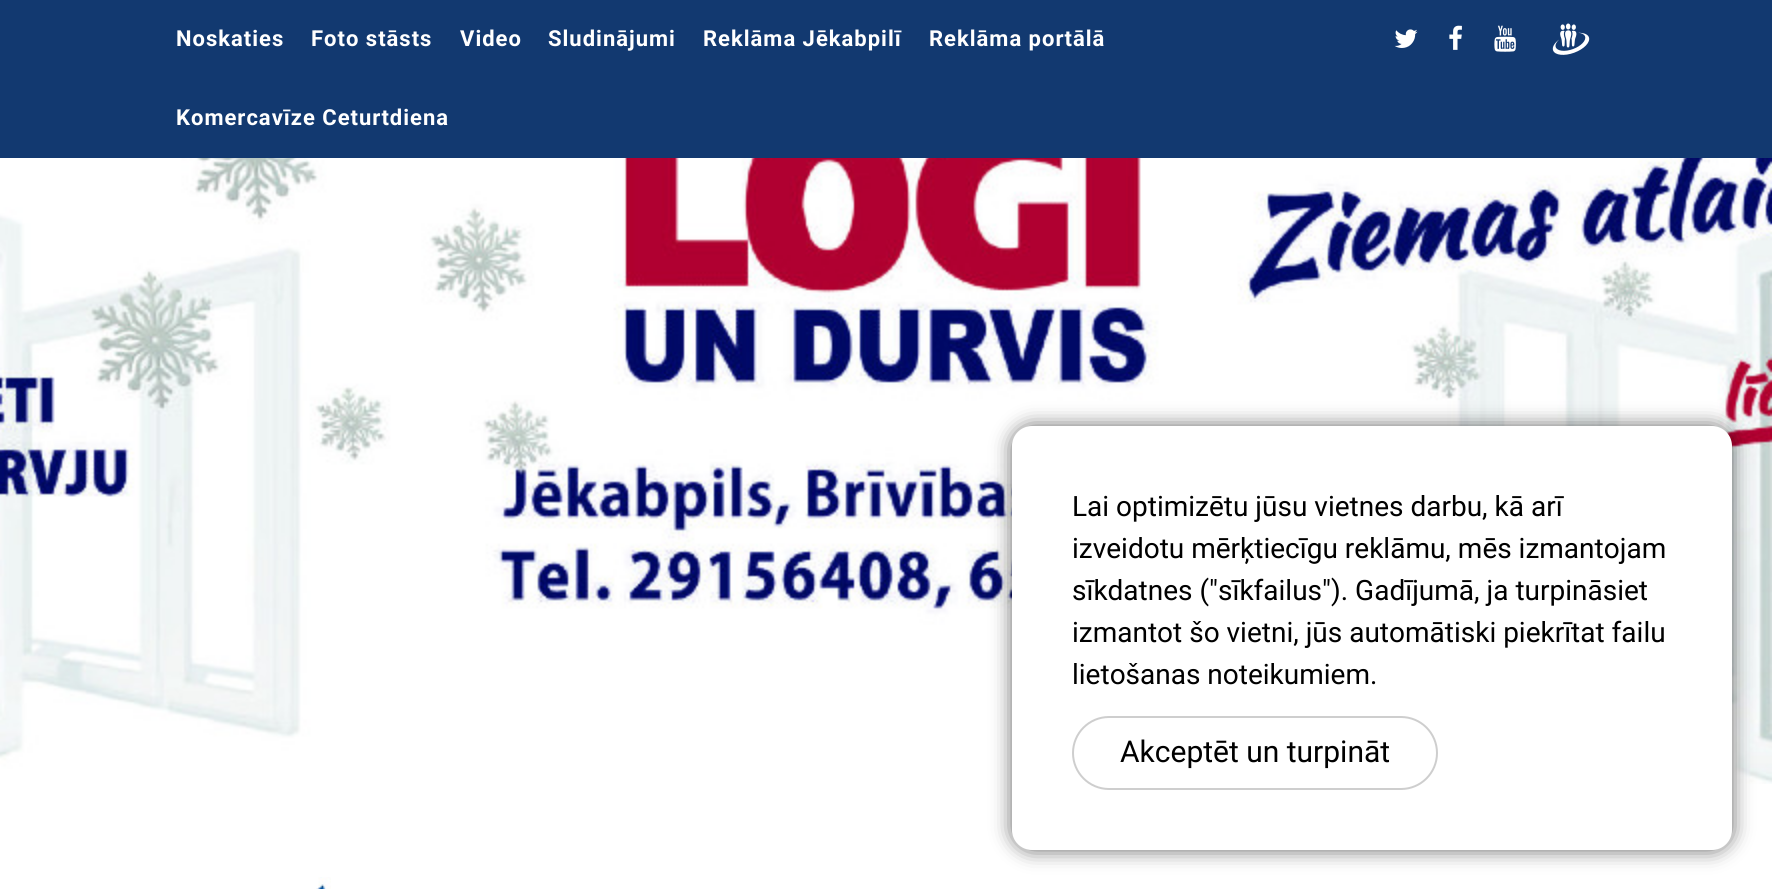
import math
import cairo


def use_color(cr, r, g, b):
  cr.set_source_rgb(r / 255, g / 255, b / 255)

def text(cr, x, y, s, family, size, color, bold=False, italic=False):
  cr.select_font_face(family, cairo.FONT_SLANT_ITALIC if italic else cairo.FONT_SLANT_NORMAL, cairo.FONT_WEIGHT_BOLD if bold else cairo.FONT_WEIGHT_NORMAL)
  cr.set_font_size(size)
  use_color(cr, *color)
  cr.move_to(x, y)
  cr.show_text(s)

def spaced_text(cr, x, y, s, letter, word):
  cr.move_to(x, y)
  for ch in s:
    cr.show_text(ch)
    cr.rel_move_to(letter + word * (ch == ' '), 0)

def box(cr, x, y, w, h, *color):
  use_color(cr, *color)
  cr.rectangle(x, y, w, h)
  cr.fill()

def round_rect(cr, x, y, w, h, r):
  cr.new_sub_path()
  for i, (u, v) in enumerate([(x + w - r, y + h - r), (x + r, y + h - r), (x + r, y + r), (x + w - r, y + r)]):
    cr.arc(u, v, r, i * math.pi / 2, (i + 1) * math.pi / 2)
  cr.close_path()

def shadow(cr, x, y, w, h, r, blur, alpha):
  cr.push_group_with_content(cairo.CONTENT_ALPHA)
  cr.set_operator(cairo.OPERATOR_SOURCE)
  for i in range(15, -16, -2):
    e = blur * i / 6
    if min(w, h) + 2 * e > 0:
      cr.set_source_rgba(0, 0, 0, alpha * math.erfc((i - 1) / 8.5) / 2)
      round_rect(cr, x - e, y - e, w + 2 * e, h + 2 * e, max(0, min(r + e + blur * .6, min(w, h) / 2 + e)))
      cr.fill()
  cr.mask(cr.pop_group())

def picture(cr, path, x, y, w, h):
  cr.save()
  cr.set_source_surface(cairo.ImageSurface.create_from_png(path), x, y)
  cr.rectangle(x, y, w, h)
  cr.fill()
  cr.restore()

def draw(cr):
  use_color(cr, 255, 255, 255)
  cr.paint()
  box(cr, 0, 0, 1772, 158, 18, 57, 112)
  picture(cr, "img_01.png", 1394, 29, 24, 19)
  picture(cr, "img_02.png", 1449, 25, 13, 25)
  picture(cr, "img_03.png", 1494, 25, 22, 27)
  picture(cr, "img_04.png", 1552, 23, 38, 32)
  picture(cr, "img_05.png", 316, 877, 15, 12)
  picture(cr, "img_06.png", 0, 158, 1772, 626)
  use_color(cr, 0, 0, 0)
  shadow(cr, 1012, 426, 720, 424, 20, 10, 0.6)
  use_color(cr, 255, 255, 255)
  round_rect(cr, 1012, 426, 720, 424, 20)
  cr.fill()
  round_rect(cr, 1073, 717, 364, 72, 36)
  use_color(cr, 206, 206, 206)
  cr.stroke()
  cr.select_font_face("Roboto", cairo.FONT_SLANT_NORMAL, cairo.FONT_WEIGHT_BOLD)
  cr.set_font_size(22)
  use_color(cr, 255, 255, 255)
  spaced_text(cr, 176, 46, "Noskaties", 1, 0)
  spaced_text(cr, 311, 46, "Foto stāsts", 1, 0)
  spaced_text(cr, 460, 46, "Video", 1, 0)
  spaced_text(cr, 548, 46, "Sludinājumi", 1, 0)
  spaced_text(cr, 703, 46, "Reklāma Jēkabpilī", 1, 0)
  spaced_text(cr, 929, 46, "Reklāma portālā", 1, 0)
  spaced_text(cr, 176, 125, "Komercavīze Ceturtdiena", 1, 0)
  text(cr, 1072, 516, "Lai optimizētu jūsu vietnes darbu, kā arī", "Roboto", 28, (0, 0, 0))
  text(cr, 1072, 558, "izveidotu mērķtiecīgu reklāmu, mēs izmantojam", "Roboto", 28, (0, 0, 0))
  text(cr, 1072, 600, "sīkdatnes (\"sīkfailus\"). Gadījumā, ja turpināsiet", "Roboto", 28, (0, 0, 0))
  text(cr, 1072, 642, "izmantot šo vietni, jūs automātiski piekrītat failu", "Roboto", 28, (0, 0, 0))
  text(cr, 1072, 684, "lietošanas noteikumiem.", "Roboto", 28, (0, 0, 0))
  text(cr, 1120, 762, "Akceptēt un turpināt", "Roboto", 30, (0, 0, 0))


surface = cairo.ImageSurface(cairo.FORMAT_RGB24, 1772, 889)
cr = cairo.Context(surface)
options = cairo.FontOptions()
options.set_hint_metrics(cairo.HINT_METRICS_OFF)
options.set_hint_style(cairo.HINT_STYLE_NONE)
cr.set_font_options(options)
cr.set_miter_limit(4)
draw(cr)
surface.write_to_png("out.png")
